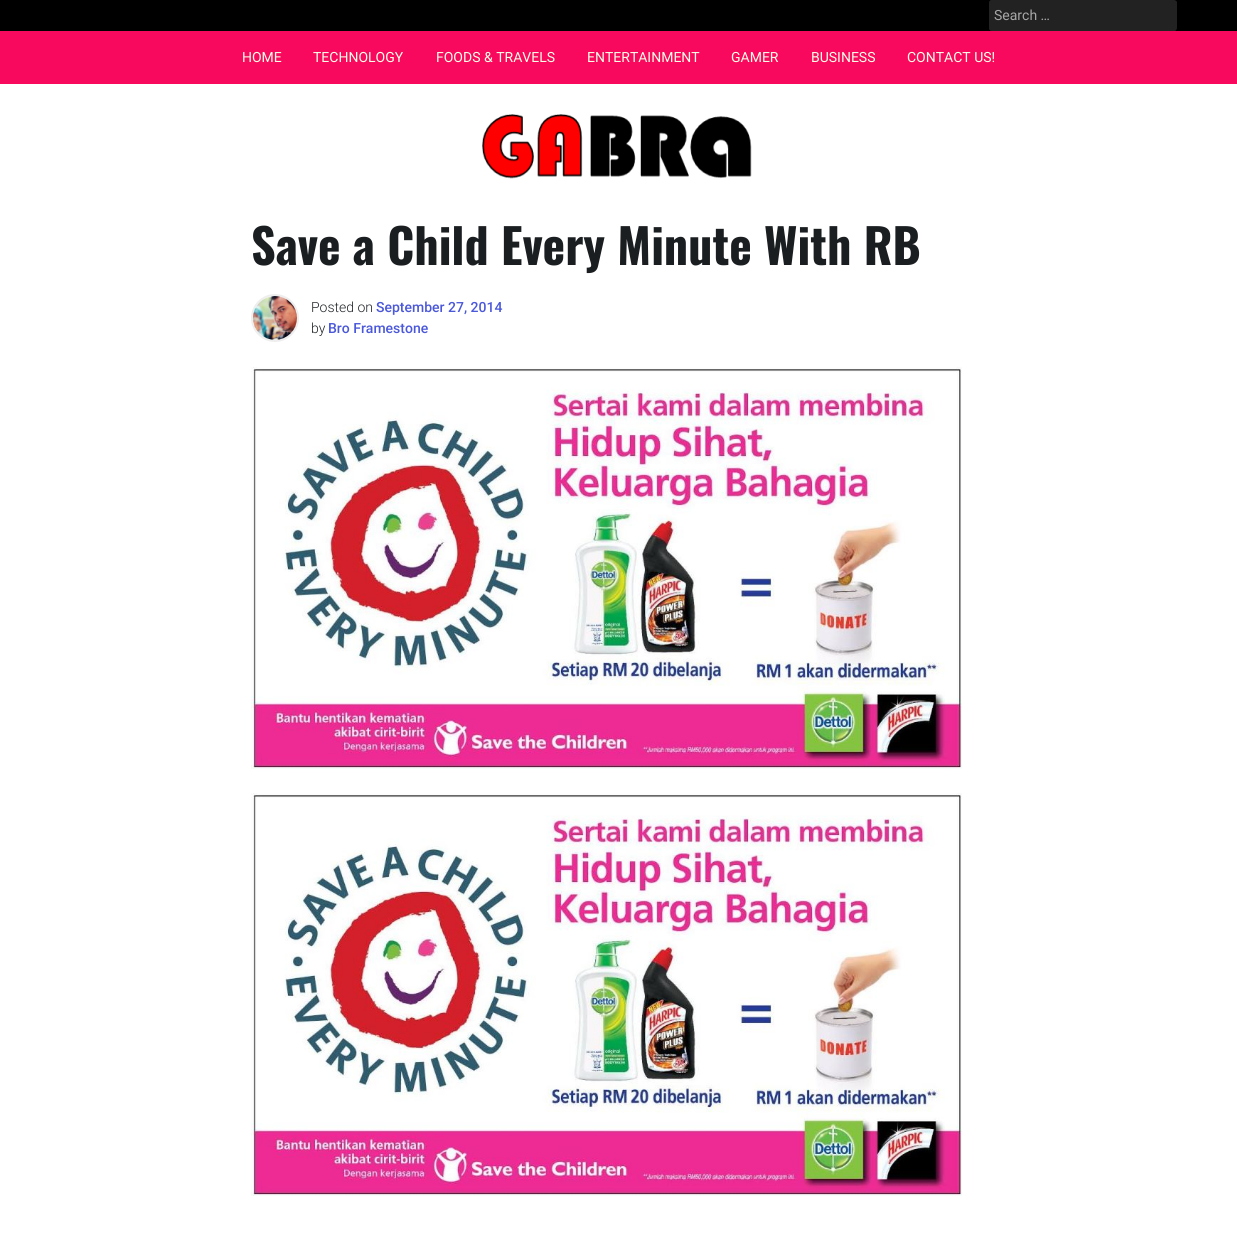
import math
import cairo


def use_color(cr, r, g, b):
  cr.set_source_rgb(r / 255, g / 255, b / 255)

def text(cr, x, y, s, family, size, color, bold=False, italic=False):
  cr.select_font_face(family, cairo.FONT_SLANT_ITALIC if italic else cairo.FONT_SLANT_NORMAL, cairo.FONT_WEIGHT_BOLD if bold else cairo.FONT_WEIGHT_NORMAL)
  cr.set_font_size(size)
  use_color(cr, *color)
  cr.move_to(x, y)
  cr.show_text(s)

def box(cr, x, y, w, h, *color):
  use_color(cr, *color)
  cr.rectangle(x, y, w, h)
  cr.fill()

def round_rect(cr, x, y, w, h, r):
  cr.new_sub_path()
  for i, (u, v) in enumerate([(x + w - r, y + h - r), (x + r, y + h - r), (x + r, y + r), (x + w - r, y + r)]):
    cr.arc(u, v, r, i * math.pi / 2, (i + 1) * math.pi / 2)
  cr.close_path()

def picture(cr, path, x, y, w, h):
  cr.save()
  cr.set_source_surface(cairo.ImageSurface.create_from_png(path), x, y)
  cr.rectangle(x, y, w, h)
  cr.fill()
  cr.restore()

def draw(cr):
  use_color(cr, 255, 255, 255)
  cr.paint()
  box(cr, 0, 0, 1237, 31, 0, 0, 0)
  use_color(cr, 34, 34, 34)
  round_rect(cr, 989, 0, 188, 31, 3)
  cr.fill()
  cr.new_path()
  cr.move_to(992, 1)
  cr.line_to(1174, 1)
  cr.curve_to(1175, 1, 1176, 2, 1176, 3)
  cr.line_to(1176, 28)
  cr.curve_to(1176, 29, 1175, 30, 1174, 30)
  cr.line_to(992, 30)
  cr.curve_to(991, 30, 990, 29, 990, 28)
  cr.line_to(990, 3)
  cr.curve_to(990, 2, 991, 1, 992, 1)
  cr.close_path()
  cr.set_dash([2, 2])
  cr.stroke()
  box(cr, 0, 31, 1237, 53, 249, 9, 93)
  picture(cr, "img_01.png", 482, 114, 270, 65)
  cr.arc(275, 318, 23, 0, 2 * math.pi)
  use_color(cr, 238, 238, 238)
  cr.set_dash([])
  cr.stroke()
  picture(cr, "img_02.png", 253, 296, 44, 44)
  picture(cr, "img_03.png", 251, 367, 711, 402)
  picture(cr, "img_04.png", 251, 793, 711, 403)
  text(cr, 994, 20, "Search …", "Roboto", 14, (167, 167, 167))
  text(cr, 242, 62, "HOME", "Roboto", 14, (249, 255, 231))
  text(cr, 313, 62, "TECHNOLOGY", "Roboto", 14, (249, 255, 231))
  text(cr, 436, 62, "FOODS & TRAVELS", "Roboto", 14, (249, 255, 231))
  text(cr, 587, 62, "ENTERTAINMENT", "Roboto", 14, (249, 255, 231))
  text(cr, 731, 62, "GAMER", "Roboto", 14, (249, 255, 231))
  text(cr, 811, 62, "BUSINESS", "Roboto", 14, (249, 255, 231))
  text(cr, 907, 62, "CONTACT US!", "Roboto", 14, (249, 255, 231))
  text(cr, 251, 265, "Save a Child Every Minute With RB", "Oswald", 48, (26, 30, 33), bold=True)
  text(cr, 311, 312, "Posted on", "Roboto Light", 14, (33, 37, 41))
  text(cr, 376, 312, "September 27, 2014", "Roboto Medium", 14, (74, 88, 217))
  text(cr, 311, 333, "by", "Roboto Light", 14, (33, 37, 41))
  text(cr, 328, 333, "Bro Framestone", "Roboto Medium", 14, (74, 88, 217))


surface = cairo.ImageSurface(cairo.FORMAT_RGB24, 1237, 1242)
cr = cairo.Context(surface)
options = cairo.FontOptions()
options.set_hint_metrics(cairo.HINT_METRICS_OFF)
options.set_hint_style(cairo.HINT_STYLE_NONE)
cr.set_font_options(options)
cr.set_miter_limit(4)
draw(cr)
surface.write_to_png("out.png")
